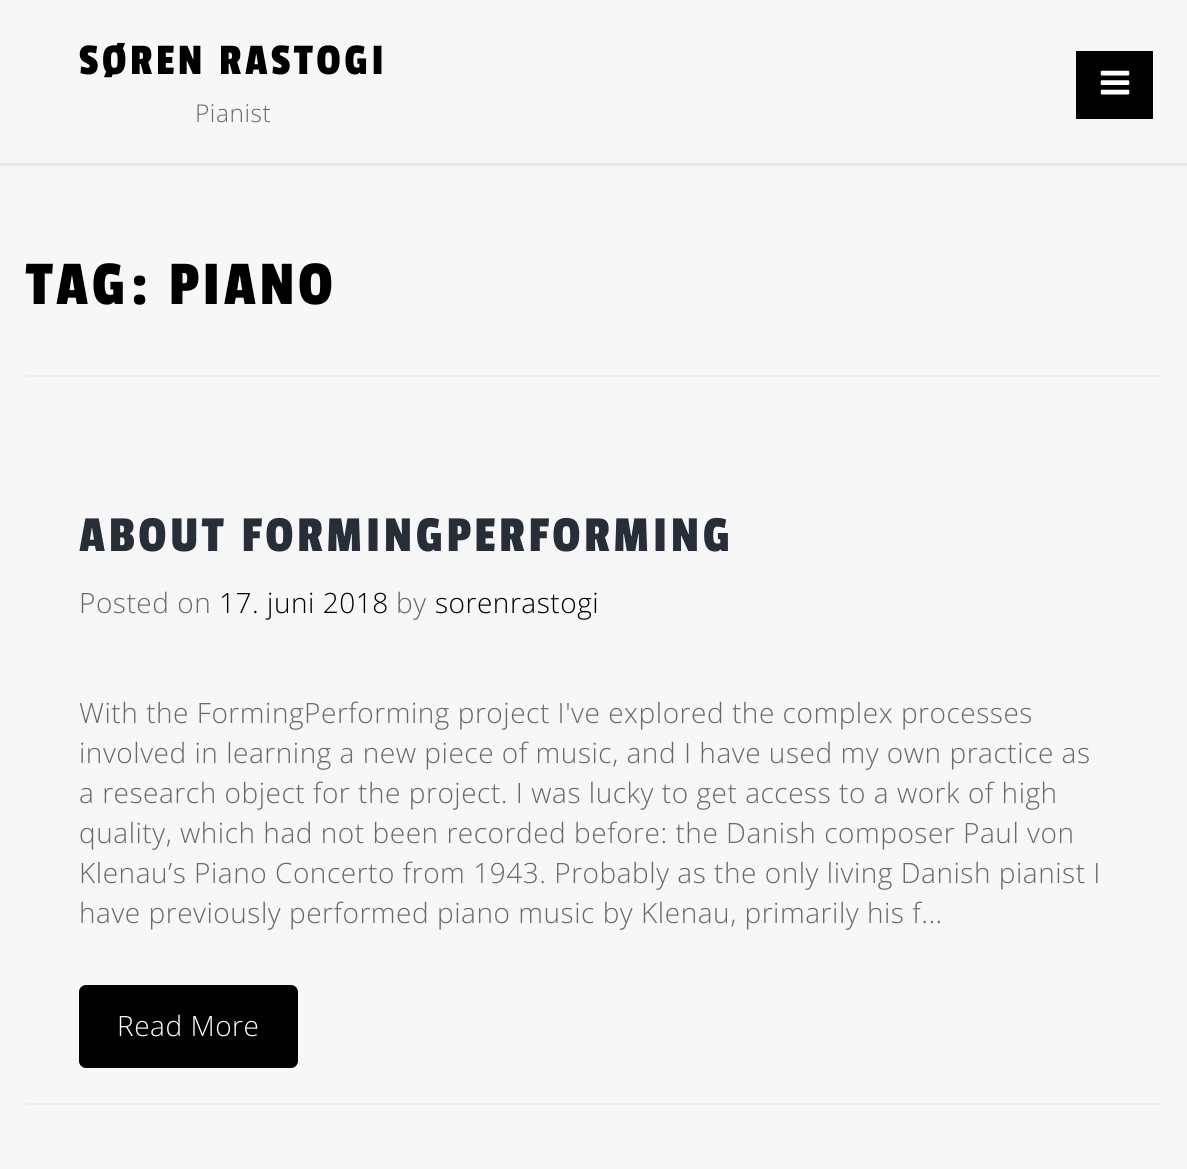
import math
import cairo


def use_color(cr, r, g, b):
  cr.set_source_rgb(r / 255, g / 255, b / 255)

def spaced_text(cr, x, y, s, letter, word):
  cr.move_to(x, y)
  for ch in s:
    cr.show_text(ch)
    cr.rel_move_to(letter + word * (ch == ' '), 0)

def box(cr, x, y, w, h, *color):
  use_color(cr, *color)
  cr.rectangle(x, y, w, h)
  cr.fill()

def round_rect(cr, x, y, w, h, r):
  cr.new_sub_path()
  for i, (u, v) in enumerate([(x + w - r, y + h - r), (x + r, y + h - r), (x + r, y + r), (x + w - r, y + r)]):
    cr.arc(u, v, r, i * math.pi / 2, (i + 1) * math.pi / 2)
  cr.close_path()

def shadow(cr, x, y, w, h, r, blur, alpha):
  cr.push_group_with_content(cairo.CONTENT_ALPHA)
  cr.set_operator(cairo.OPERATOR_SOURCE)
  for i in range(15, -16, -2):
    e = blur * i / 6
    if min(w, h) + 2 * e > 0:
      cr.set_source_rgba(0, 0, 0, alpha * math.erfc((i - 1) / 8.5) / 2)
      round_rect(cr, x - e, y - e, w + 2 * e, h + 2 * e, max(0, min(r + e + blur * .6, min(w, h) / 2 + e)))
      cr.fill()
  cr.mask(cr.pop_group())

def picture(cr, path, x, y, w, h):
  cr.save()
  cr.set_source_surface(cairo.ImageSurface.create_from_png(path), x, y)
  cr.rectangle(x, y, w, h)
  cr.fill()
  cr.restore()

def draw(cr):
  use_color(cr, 247, 247, 247)
  cr.paint()
  cr.save()
  cr.set_fill_rule(cairo.FILL_RULE_EVEN_ODD)
  cr.new_path()
  cr.move_to(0, 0)
  cr.line_to(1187, 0)
  cr.line_to(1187, 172)
  cr.line_to(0, 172)
  cr.close_path()
  cr.move_to(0, 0)
  cr.line_to(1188, 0)
  cr.line_to(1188, 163)
  cr.line_to(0, 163)
  cr.close_path()
  cr.clip()
  use_color(cr, 0, 0, 0)
  shadow(cr, 0, 2, 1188, 163, 0, 2, 0.1)
  cr.restore()
  box(cr, 1076, 51, 77, 68, 0, 0, 0)
  picture(cr, "img_01.png", 1100, 70, 30, 25)
  box(cr, 26, 375, 1136, 2, 238, 238, 238)
  box(cr, 26, 1103, 1136, 2, 238, 238, 238)
  use_color(cr, 0, 0, 0)
  round_rect(cr, 79, 985, 219, 83, 7)
  cr.fill()
  cr.select_font_face("Passion One")
  cr.set_font_size(45.5)
  spaced_text(cr, 79, 74, "SØREN RASTOGI", 3.5, 0)
  cr.select_font_face("Open Sans Light")
  cr.set_font_size(24.5)
  use_color(cr, 105, 105, 105)
  spaced_text(cr, 195, 122, "Pianist", 0.53, 0)
  cr.select_font_face("Passion One")
  cr.set_font_size(64.75)
  use_color(cr, 0, 0, 0)
  spaced_text(cr, 26, 304, "TAG: PIANO", 3.5, 0)
  cr.set_font_size(52.5)
  use_color(cr, 39, 46, 55)
  spaced_text(cr, 79, 551, "ABOUT FORMINGPERFORMING", 3.5, 0)
  cr.select_font_face("Open Sans Light")
  cr.set_font_size(28)
  use_color(cr, 105, 105, 105)
  spaced_text(cr, 79, 613, "Posted on", 0.53, 0)
  use_color(cr, 0, 0, 0)
  spaced_text(cr, 219, 613, "17. juni 2018", 0.53, 0)
  use_color(cr, 105, 105, 105)
  spaced_text(cr, 396, 613, "by", 0.53, 0)
  use_color(cr, 0, 0, 0)
  spaced_text(cr, 435, 613, "sorenrastogi", 0.53, 0)
  use_color(cr, 105, 105, 105)
  spaced_text(cr, 79, 723, "With the FormingPerforming project I've explored the complex processes", 0.53, 0)
  spaced_text(cr, 79, 763, "involved in learning a new piece of music, and I have used my own practice as", 0.53, 0)
  spaced_text(cr, 79, 803, "a research object for the project. I was lucky to get access to a work of high", 0.53, 0)
  spaced_text(cr, 79, 843, "quality, which had not been recorded before: the Danish composer Paul von", 0.53, 0)
  spaced_text(cr, 79, 883, "Klenau’s Piano Concerto from 1943. Probably as the only living Danish pianist I", 0.53, 0)
  spaced_text(cr, 79, 923, "have previously performed piano music by Klenau, primarily his f...", 0.53, 0)
  use_color(cr, 255, 255, 255)
  spaced_text(cr, 117, 1036, "Read More", 0.53, 0)


surface = cairo.ImageSurface(cairo.FORMAT_RGB24, 1187, 1169)
cr = cairo.Context(surface)
options = cairo.FontOptions()
options.set_hint_metrics(cairo.HINT_METRICS_OFF)
options.set_hint_style(cairo.HINT_STYLE_NONE)
cr.set_font_options(options)
cr.set_miter_limit(4)
draw(cr)
surface.write_to_png("out.png")
